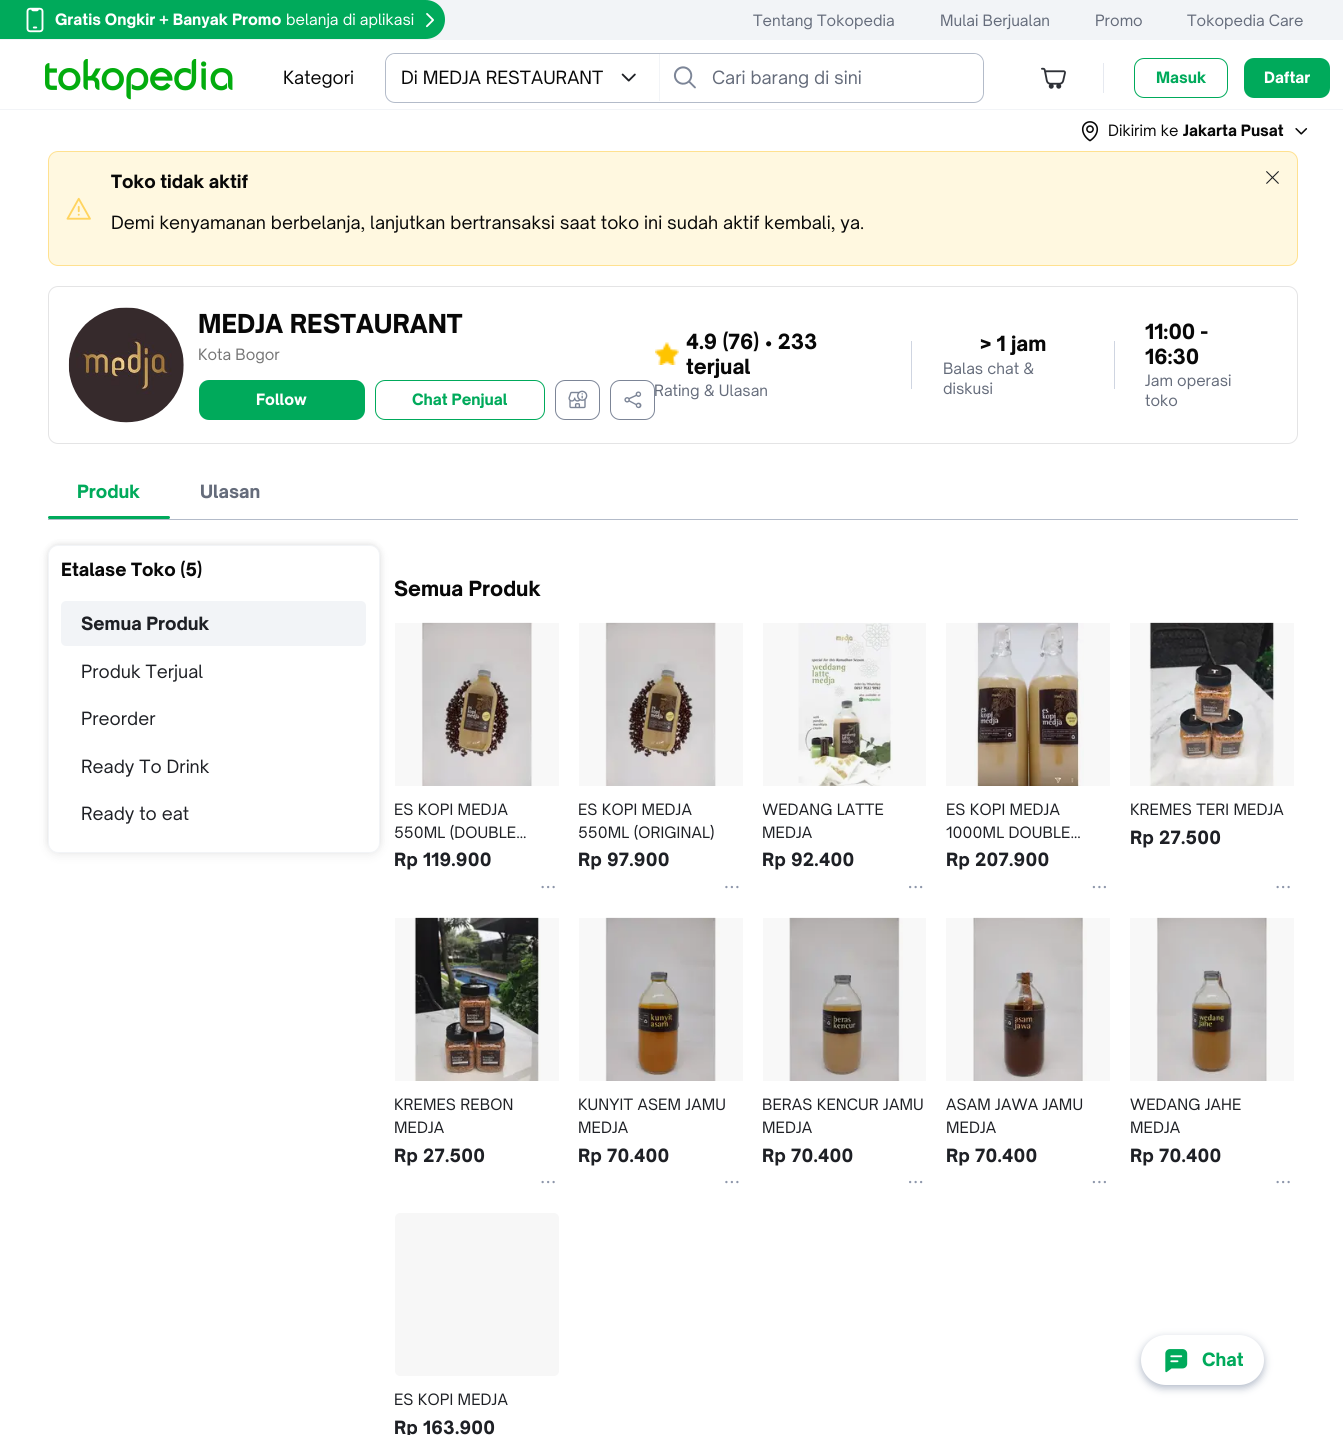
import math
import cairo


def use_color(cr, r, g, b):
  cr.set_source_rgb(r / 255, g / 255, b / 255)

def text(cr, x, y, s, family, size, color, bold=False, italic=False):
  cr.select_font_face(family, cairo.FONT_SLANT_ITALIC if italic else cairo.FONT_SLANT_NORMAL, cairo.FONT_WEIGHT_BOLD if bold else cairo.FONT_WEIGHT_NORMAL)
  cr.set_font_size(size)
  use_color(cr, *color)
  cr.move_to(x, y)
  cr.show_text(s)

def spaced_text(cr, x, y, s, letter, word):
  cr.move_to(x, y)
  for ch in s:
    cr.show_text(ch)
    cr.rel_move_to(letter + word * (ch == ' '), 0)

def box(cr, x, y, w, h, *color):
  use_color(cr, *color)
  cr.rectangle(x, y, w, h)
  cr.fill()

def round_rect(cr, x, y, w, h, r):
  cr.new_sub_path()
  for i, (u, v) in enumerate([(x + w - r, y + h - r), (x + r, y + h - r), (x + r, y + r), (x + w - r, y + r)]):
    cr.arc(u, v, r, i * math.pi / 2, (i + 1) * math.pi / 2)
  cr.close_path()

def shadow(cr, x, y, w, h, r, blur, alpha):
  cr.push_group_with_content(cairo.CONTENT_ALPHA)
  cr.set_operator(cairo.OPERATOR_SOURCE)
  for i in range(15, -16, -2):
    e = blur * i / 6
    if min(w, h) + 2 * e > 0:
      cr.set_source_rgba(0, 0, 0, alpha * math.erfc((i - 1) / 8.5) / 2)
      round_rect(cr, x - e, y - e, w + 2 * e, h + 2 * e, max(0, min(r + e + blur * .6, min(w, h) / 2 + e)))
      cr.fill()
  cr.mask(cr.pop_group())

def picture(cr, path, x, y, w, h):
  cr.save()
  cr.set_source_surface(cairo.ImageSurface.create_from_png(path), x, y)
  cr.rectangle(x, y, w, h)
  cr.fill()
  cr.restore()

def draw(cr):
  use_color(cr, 255, 255, 255)
  cr.paint()
  box(cr, 0, 109, 1343, 1, 242, 244, 247)
  box(cr, 0, 0, 1343, 40, 242, 244, 247)
  use_color(cr, 0, 170, 91)
  cr.new_path()
  cr.move_to(0, 0)
  cr.line_to(425.5, 0)
  cr.curve_to(436.5, 0, 445, 8.5, 445, 19.5)
  cr.curve_to(445, 30.5, 436.5, 39, 425.5, 39)
  cr.line_to(0, 39)
  cr.close_path()
  cr.fill()
  picture(cr, "img_01.png", 26, 7, 18, 26)
  picture(cr, "img_02.png", 426, 13, 8, 15)
  picture(cr, "img_03.png", 45, 59, 188, 41)
  round_rect(cr, 385.5, 53.5, 598, 49, 9.5)
  use_color(cr, 179, 187, 201)
  cr.set_line_width(1)
  cr.stroke()
  use_color(cr, 255, 255, 255)
  cr.new_path()
  cr.move_to(396, 54)
  cr.line_to(660, 54)
  cr.line_to(660, 101)
  cr.line_to(396, 101)
  cr.curve_to(390.5, 101, 386, 96.5, 386, 91)
  cr.line_to(386, 64)
  cr.curve_to(386, 58.5, 390.5, 54, 396, 54)
  cr.close_path()
  cr.fill()
  box(cr, 659, 54, 1, 47, 242, 244, 247)
  picture(cr, "img_04.png", 621, 73, 15, 9)
  use_color(cr, 255, 255, 255)
  round_rect(cr, 660, 54, 323, 47, 10)
  cr.fill()
  picture(cr, "img_05.png", 673, 66, 23, 23)
  picture(cr, "img_06.png", 1041, 67, 25, 22)
  box(cr, 1103, 63, 1, 30, 230, 233, 240)
  round_rect(cr, 1134.5, 58.5, 93, 39, 9.5)
  use_color(cr, 0, 170, 91)
  cr.stroke()
  round_rect(cr, 1244, 58, 86, 40, 10)
  cr.fill()
  picture(cr, "img_07.png", 1081, 121, 18, 21)
  picture(cr, "img_08.png", 1295, 128, 13, 7)
  use_color(cr, 255, 248, 224)
  round_rect(cr, 48.5, 151.5, 1249, 114, 9.5)
  cr.fill_preserve()
  use_color(cr, 255, 225, 144)
  cr.stroke()
  picture(cr, "img_09.png", 66, 197, 25, 23)
  picture(cr, "img_10.png", 1266, 171, 13, 13)
  round_rect(cr, 48.5, 286.5, 1249, 157, 9.5)
  use_color(cr, 228, 228, 229)
  cr.stroke()
  picture(cr, "img_11.png", 68, 307, 116, 116)
  use_color(cr, 0, 170, 91)
  round_rect(cr, 199, 380, 166, 40, 10)
  cr.fill()
  round_rect(cr, 375.5, 380.5, 169, 39, 9.5)
  cr.stroke()
  round_rect(cr, 555.5, 380.5, 44, 39, 9.5)
  use_color(cr, 124, 133, 151)
  cr.stroke()
  picture(cr, "img_12.png", 568, 390, 20, 19)
  round_rect(cr, 610.5, 380.5, 44, 39, 9.5)
  cr.stroke()
  picture(cr, "img_13.png", 624, 391, 18, 18)
  picture(cr, "img_14.png", 655, 342, 24, 23)
  box(cr, 911, 341, 1, 48, 207, 213, 225)
  box(cr, 1114, 341, 1, 48, 207, 213, 225)
  box(cr, 48, 519, 1250, 1, 179, 187, 201)
  use_color(cr, 0, 170, 91)
  round_rect(cr, 48, 516, 122, 3, 1.5)
  cr.fill()
  use_color(cr, 0, 0, 0)
  shadow(cr, 48, 544, 332, 307, 10, 3, 0.09)
  shadow(cr, 48, 548, 332, 307, 10, 6, 0.07)
  use_color(cr, 255, 255, 255)
  round_rect(cr, 48.5, 545.5, 331, 307, 9.5)
  cr.fill_preserve()
  use_color(cr, 242, 244, 247)
  cr.stroke()
  round_rect(cr, 61, 601, 305, 45, 5)
  cr.fill()
  picture(cr, "img_15.png", 421, 622, 112, 164)
  cr.set_source_rgba(0, 0, 0, 0.03)
  cr.rectangle(395, 623, 164, 163)
  cr.fill()
  picture(cr, "img_16.png", 541, 885, 14, 4)
  picture(cr, "img_17.png", 605, 622, 111, 164)
  cr.rectangle(579, 623, 164, 163)
  cr.fill()
  picture(cr, "img_18.png", 725, 885, 14, 4)
  picture(cr, "img_19.png", 798, 623, 95, 163)
  cr.rectangle(763, 623, 163, 163)
  cr.fill()
  picture(cr, "img_20.png", 909, 885, 14, 4)
  picture(cr, "img_21.png", 974, 622, 110, 164)
  cr.rectangle(946, 623, 164, 163)
  cr.fill()
  picture(cr, "img_22.png", 1092, 885, 14, 4)
  picture(cr, "img_23.png", 1149, 622, 128, 164)
  cr.rectangle(1130, 623, 164, 163)
  cr.fill()
  picture(cr, "img_16.png", 1276, 885, 14, 4)
  picture(cr, "img_24.png", 414, 917, 127, 164)
  cr.rectangle(395, 918, 164, 163)
  cr.fill()
  picture(cr, "img_16.png", 541, 1180, 14, 4)
  picture(cr, "img_25.png", 605, 917, 115, 164)
  cr.rectangle(579, 918, 164, 163)
  cr.fill()
  picture(cr, "img_18.png", 725, 1180, 14, 4)
  picture(cr, "img_26.png", 789, 917, 114, 164)
  cr.rectangle(763, 918, 163, 163)
  cr.fill()
  picture(cr, "img_20.png", 909, 1180, 14, 4)
  picture(cr, "img_27.png", 973, 917, 114, 164)
  cr.rectangle(946, 918, 164, 163)
  cr.fill()
  picture(cr, "img_22.png", 1092, 1180, 14, 4)
  picture(cr, "img_28.png", 1156, 917, 114, 164)
  cr.rectangle(1130, 918, 164, 163)
  cr.fill()
  picture(cr, "img_16.png", 1276, 1180, 14, 4)
  use_color(cr, 247, 247, 247)
  round_rect(cr, 395, 1213, 164, 163, 5)
  cr.fill()
  use_color(cr, 179, 187, 201)
  shadow(cr, 1141, 1338, 123, 50, 25, 4, 1)
  use_color(cr, 255, 255, 255)
  round_rect(cr, 1141, 1335, 123, 50, 25)
  cr.fill()
  picture(cr, "img_29.png", 1165, 1349, 23, 24)
  text(cr, 55, 25, "Gratis Ongkir + Banyak Promo", "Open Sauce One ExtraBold", 15, (255, 255, 255))
  text(cr, 286, 25, "belanja di aplikasi", "Open Sauce One", 15, (255, 255, 255))
  text(cr, 753, 26, "Tentang Tokopedia", "Open Sauce One", 15, (101, 108, 123))
  text(cr, 940, 26, "Mulai Berjualan", "Open Sauce One", 15, (101, 108, 123))
  text(cr, 1095, 26, "Promo", "Open Sauce One", 15, (101, 108, 123))
  text(cr, 1187, 26, "Tokopedia Care", "Open Sauce One", 15, (101, 108, 123))
  text(cr, 283, 84, "Kategori", "Open Sauce One", 17.5, (8, 8, 8))
  text(cr, 401, 84, "Di MEDJA RESTAURANT", "Open Sauce One", 17.5, (8, 8, 8))
  text(cr, 712, 84, "Cari barang di sini", "Open Sauce One", 17.5, (101, 108, 123))
  text(cr, 1156, 83, "Masuk", "Open Sauce One ExtraBold", 15, (0, 170, 91))
  text(cr, 1264, 83, "Daftar", "Open Sauce One ExtraBold", 15, (255, 255, 255))
  text(cr, 1108, 136, "Dikirim ke", "Open Sauce One", 15, (8, 8, 8))
  text(cr, 1183, 136, "Jakarta Pusat", "Open Sauce One ExtraBold", 15, (8, 8, 8))
  text(cr, 111, 188, "Toko tidak aktif", "Open Sauce One ExtraBold", 17.5, (8, 8, 8))
  text(cr, 111, 229, "Demi kenyamanan berbelanja, lanjutkan bertransaksi saat toko ini sudah aktif kembali, ya.", "Open Sauce One", 17.5, (8, 8, 8))
  text(cr, 198, 333, "MEDJA RESTAURANT", "Open Sauce One ExtraBold", 25, (8, 8, 8))
  text(cr, 198, 360, "Kota Bogor", "Open Sauce One", 15, (117, 117, 117))
  text(cr, 256, 405, "Follow", "Open Sauce One ExtraBold", 15, (255, 255, 255))
  text(cr, 412, 405, "Chat Penjual", "Open Sauce One ExtraBold", 15, (0, 170, 91))
  text(cr, 686, 349, "4.9 (76) • 233", "Open Sauce One ExtraBold", 20, (8, 8, 8))
  text(cr, 686, 374, "terjual", "Open Sauce One ExtraBold", 20, (8, 8, 8))
  text(cr, 654, 396, "Rating & Ulasan", "Open Sauce One", 15, (101, 108, 123))
  text(cr, 980, 351, "> 1 jam", "Open Sauce One ExtraBold", 20, (8, 8, 8))
  text(cr, 943, 374, "Balas chat &", "Open Sauce One", 15, (101, 108, 123))
  text(cr, 943, 394, "diskusi", "Open Sauce One", 15, (101, 108, 123))
  text(cr, 1145, 339, "11:00 -", "Open Sauce One ExtraBold", 20, (8, 8, 8))
  text(cr, 1145, 364, "16:30", "Open Sauce One ExtraBold", 20, (8, 8, 8))
  text(cr, 1145, 386, "Jam operasi", "Open Sauce One", 15, (101, 108, 123))
  text(cr, 1145, 406, "toko", "Open Sauce One", 15, (101, 108, 123))
  text(cr, 77, 498, "Produk", "Open Sauce One ExtraBold", 17.5, (0, 170, 91))
  text(cr, 200, 498, "Ulasan", "Open Sauce One ExtraBold", 17.5, (101, 108, 123))
  text(cr, 61, 576, "Etalase Toko (5)", "Open Sauce One ExtraBold", 17.5, (8, 8, 8))
  text(cr, 81, 630, "Semua Produk", "Open Sauce One ExtraBold", 17.5, (30, 32, 37))
  text(cr, 81, 678, "Produk Terjual", "Open Sauce One", 17.5, (30, 32, 37))
  text(cr, 81, 725, "Preorder", "Open Sauce One", 17.5, (30, 32, 37))
  text(cr, 81, 773, "Ready To Drink", "Open Sauce One", 17.5, (30, 32, 37))
  text(cr, 81, 820, "Ready to eat", "Open Sauce One", 17.5, (30, 32, 37))
  text(cr, 394, 596, "Semua Produk", "Open Sauce One ExtraBold", 20, (8, 8, 8))
  cr.select_font_face("Open Sauce One")
  cr.set_font_size(15)
  use_color(cr, 30, 32, 37)
  spaced_text(cr, 394, 815, "ES KOPI MEDJA", 0.1, 0)
  spaced_text(cr, 394, 838, "550ML (DOUBLE…", 0.1, 0)
  cr.select_font_face("Open Sauce One ExtraBold")
  cr.set_font_size(17.5)
  spaced_text(cr, 394, 866, "Rp 119.900", 0.25, 0)
  cr.select_font_face("Open Sauce One")
  cr.set_font_size(15)
  spaced_text(cr, 578, 815, "ES KOPI MEDJA", 0.1, 0)
  spaced_text(cr, 578, 838, "550ML (ORIGINAL)", 0.1, 0)
  cr.select_font_face("Open Sauce One ExtraBold")
  cr.set_font_size(17.5)
  spaced_text(cr, 578, 866, "Rp 97.900", 0.25, 0)
  cr.save()
  cr.rectangle(763, 799, 163, 45)
  cr.clip()
  cr.select_font_face("Open Sauce One")
  cr.set_font_size(15)
  spaced_text(cr, 762, 815, "WEDANG LATTE", 0.1, 0)
  cr.restore()
  cr.select_font_face("Open Sauce One")
  cr.set_font_size(15)
  spaced_text(cr, 762, 838, "MEDJA", 0.1, 0)
  cr.select_font_face("Open Sauce One ExtraBold")
  cr.set_font_size(17.5)
  spaced_text(cr, 762, 866, "Rp 92.400", 0.25, 0)
  cr.select_font_face("Open Sauce One")
  cr.set_font_size(15)
  spaced_text(cr, 946, 815, "ES KOPI MEDJA", 0.1, 0)
  spaced_text(cr, 946, 838, "1000ML DOUBLE…", 0.1, 0)
  cr.select_font_face("Open Sauce One ExtraBold")
  cr.set_font_size(17.5)
  spaced_text(cr, 946, 866, "Rp 207.900", 0.25, 0)
  cr.select_font_face("Open Sauce One")
  cr.set_font_size(15)
  spaced_text(cr, 1130, 815, "KREMES TERI MEDJA", 0.1, 0)
  cr.select_font_face("Open Sauce One ExtraBold")
  cr.set_font_size(17.5)
  spaced_text(cr, 1130, 844, "Rp 27.500", 0.25, 0)
  cr.select_font_face("Open Sauce One")
  cr.set_font_size(15)
  spaced_text(cr, 394, 1110, "KREMES REBON", 0.1, 0)
  spaced_text(cr, 394, 1133, "MEDJA", 0.1, 0)
  cr.select_font_face("Open Sauce One ExtraBold")
  cr.set_font_size(17.5)
  spaced_text(cr, 394, 1162, "Rp 27.500", 0.25, 0)
  cr.select_font_face("Open Sauce One")
  cr.set_font_size(15)
  spaced_text(cr, 578, 1110, "KUNYIT ASEM JAMU", 0.1, 0)
  spaced_text(cr, 578, 1133, "MEDJA", 0.1, 0)
  cr.select_font_face("Open Sauce One ExtraBold")
  cr.set_font_size(17.5)
  spaced_text(cr, 578, 1162, "Rp 70.400", 0.25, 0)
  cr.select_font_face("Open Sauce One")
  cr.set_font_size(15)
  spaced_text(cr, 762, 1110, "BERAS KENCUR JAMU", 0.1, 0)
  spaced_text(cr, 762, 1133, "MEDJA", 0.1, 0)
  cr.select_font_face("Open Sauce One ExtraBold")
  cr.set_font_size(17.5)
  spaced_text(cr, 762, 1162, "Rp 70.400", 0.25, 0)
  cr.select_font_face("Open Sauce One")
  cr.set_font_size(15)
  spaced_text(cr, 946, 1110, "ASAM JAWA JAMU", 0.1, 0)
  spaced_text(cr, 946, 1133, "MEDJA", 0.1, 0)
  cr.select_font_face("Open Sauce One ExtraBold")
  cr.set_font_size(17.5)
  spaced_text(cr, 946, 1162, "Rp 70.400", 0.25, 0)
  cr.select_font_face("Open Sauce One")
  cr.set_font_size(15)
  spaced_text(cr, 1130, 1110, "WEDANG JAHE", 0.1, 0)
  spaced_text(cr, 1130, 1133, "MEDJA", 0.1, 0)
  cr.select_font_face("Open Sauce One ExtraBold")
  cr.set_font_size(17.5)
  spaced_text(cr, 1130, 1162, "Rp 70.400", 0.25, 0)
  cr.select_font_face("Open Sauce One")
  cr.set_font_size(15)
  spaced_text(cr, 394, 1405, "ES KOPI MEDJA", 0.1, 0)
  cr.select_font_face("Open Sauce One ExtraBold")
  cr.set_font_size(17.5)
  spaced_text(cr, 394, 1434, "Rp 163.900", 0.25, 0)
  text(cr, 1202, 1366, "Chat", "Open Sauce One ExtraBold", 17.5, (0, 170, 91))


surface = cairo.ImageSurface(cairo.FORMAT_RGB24, 1343, 1435)
cr = cairo.Context(surface)
options = cairo.FontOptions()
options.set_hint_metrics(cairo.HINT_METRICS_OFF)
options.set_hint_style(cairo.HINT_STYLE_NONE)
cr.set_font_options(options)
cr.set_miter_limit(4)
draw(cr)
surface.write_to_png("out.png")
